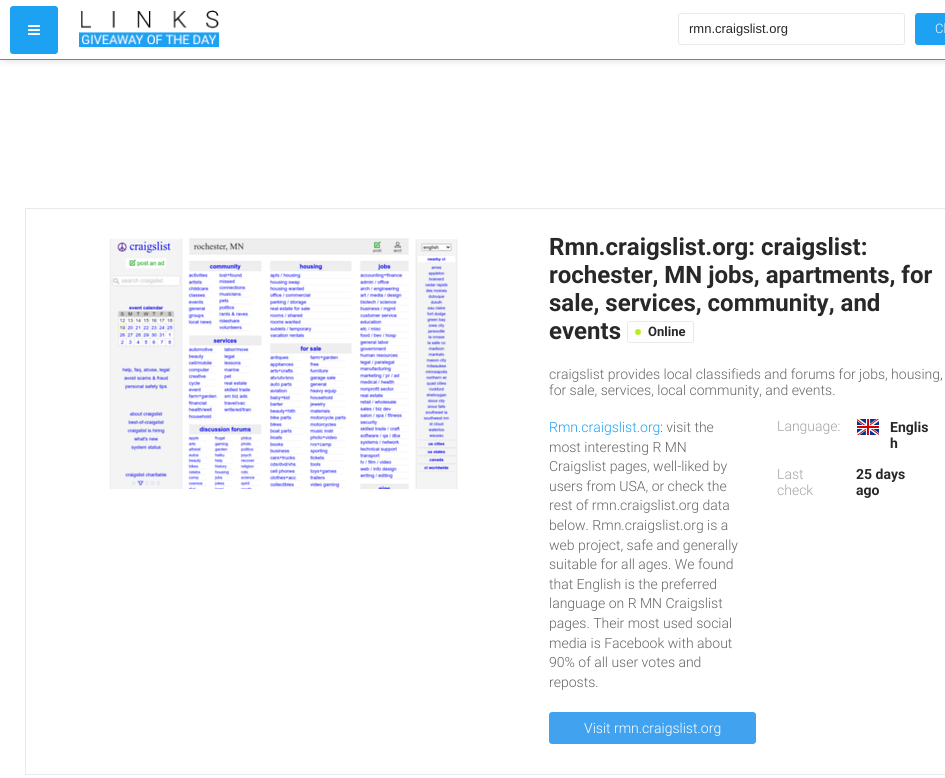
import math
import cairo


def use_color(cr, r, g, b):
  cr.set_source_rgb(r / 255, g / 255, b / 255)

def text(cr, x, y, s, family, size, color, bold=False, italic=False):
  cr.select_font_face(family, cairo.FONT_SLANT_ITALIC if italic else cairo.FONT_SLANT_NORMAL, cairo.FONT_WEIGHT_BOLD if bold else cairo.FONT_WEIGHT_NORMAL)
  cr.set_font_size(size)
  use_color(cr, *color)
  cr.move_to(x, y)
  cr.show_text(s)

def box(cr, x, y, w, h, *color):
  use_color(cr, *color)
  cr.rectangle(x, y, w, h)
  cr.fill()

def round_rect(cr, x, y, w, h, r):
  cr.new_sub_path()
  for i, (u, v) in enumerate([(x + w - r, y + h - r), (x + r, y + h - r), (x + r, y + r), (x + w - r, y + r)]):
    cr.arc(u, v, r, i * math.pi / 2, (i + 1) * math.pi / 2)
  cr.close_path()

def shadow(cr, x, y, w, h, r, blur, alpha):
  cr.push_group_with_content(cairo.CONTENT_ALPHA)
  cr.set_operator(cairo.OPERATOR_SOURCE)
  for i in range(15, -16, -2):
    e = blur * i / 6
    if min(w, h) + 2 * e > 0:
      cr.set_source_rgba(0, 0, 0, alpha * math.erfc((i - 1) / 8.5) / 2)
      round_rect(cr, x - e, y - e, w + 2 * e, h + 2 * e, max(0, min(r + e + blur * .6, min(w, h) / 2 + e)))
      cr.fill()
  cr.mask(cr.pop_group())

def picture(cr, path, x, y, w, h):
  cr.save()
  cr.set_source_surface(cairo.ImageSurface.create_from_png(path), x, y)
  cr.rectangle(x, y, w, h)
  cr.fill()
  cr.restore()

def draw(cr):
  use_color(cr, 255, 255, 255)
  cr.paint()
  cr.save()
  cr.rectangle(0, 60, 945, 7)
  cr.clip()
  use_color(cr, 153, 153, 153)
  shadow(cr, 5, 5, 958, 50, 0, 6, 1)
  cr.restore()
  box(cr, 0, 59, 945, 1, 29, 161, 242)
  round_rect(cr, 10, 6, 48, 48, 3)
  cr.fill()
  picture(cr, "img_01.png", 28, 25, 12, 10)
  picture(cr, "img_02.png", 79, 10, 141, 38)
  round_rect(cr, 678.5, 13.5, 226, 31, 2.5)
  use_color(cr, 233, 233, 233)
  cr.set_line_width(1)
  cr.stroke()
  use_color(cr, 29, 161, 242)
  round_rect(cr, 915, 13, 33, 32, 3)
  cr.fill()
  cr.rectangle(25.5, 208.5, 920, 566)
  use_color(cr, 233, 233, 233)
  cr.stroke()
  picture(cr, "img_03.png", 109, 238, 349, 251)
  round_rect(cr, 627.5, 321.5, 66, 21, 2.5)
  cr.stroke()
  use_color(cr, 179, 242, 29)
  cr.arc(638, 332, 3, 0, 2 * math.pi)
  cr.fill()
  use_color(cr, 65, 163, 239)
  round_rect(cr, 549, 712, 207, 32, 3)
  cr.fill()
  picture(cr, "img_04.png", 857, 419, 22, 16)
  text(cr, 689, 33, "rmn.craigslist.org", "Liberation Sans", 13, (40, 40, 40))
  text(cr, 935, 33, "Ch", "Roboto Light", 13, (255, 255, 255))
  text(cr, 549, 255, "Rmn.craigslist.org: craigslist:", "Roboto", 24, (40, 40, 40), bold=True)
  text(cr, 549, 283, "rochester, MN jobs, apartments, for", "Roboto", 24, (40, 40, 40), bold=True)
  text(cr, 549, 311, "sale, services, community, and", "Roboto", 24, (40, 40, 40), bold=True)
  text(cr, 549, 339, "events", "Roboto", 24, (40, 40, 40), bold=True)
  text(cr, 648, 336, "Online", "Roboto", 13, (40, 40, 40), bold=True)
  text(cr, 549, 379, "craigslist provides local classifieds and forums for jobs, housing,", "Roboto Light", 14, (102, 102, 102))
  text(cr, 549, 395, "for sale, services, local community, and events.", "Roboto Light", 14, (102, 102, 102))
  text(cr, 549, 432, "Rmn.craigslist.org", "Roboto Light", 14, (29, 161, 242))
  text(cr, 660, 432, ": visit the", "Roboto Light", 14, (102, 102, 102))
  text(cr, 549, 452, "most interesting R MN", "Roboto Light", 14, (102, 102, 102))
  text(cr, 549, 471, "Craigslist pages, well-liked by", "Roboto Light", 14, (102, 102, 102))
  text(cr, 549, 491, "users from USA, or check the", "Roboto Light", 14, (102, 102, 102))
  text(cr, 549, 510, "rest of rmn.craigslist.org data", "Roboto Light", 14, (102, 102, 102))
  text(cr, 549, 530, "below. Rmn.craigslist.org is a", "Roboto Light", 14, (102, 102, 102))
  text(cr, 549, 550, "web project, safe and generally", "Roboto Light", 14, (102, 102, 102))
  text(cr, 549, 569, "suitable for all ages. We found", "Roboto Light", 14, (102, 102, 102))
  text(cr, 549, 589, "that English is the preferred", "Roboto Light", 14, (102, 102, 102))
  text(cr, 549, 608, "language on R MN Craigslist", "Roboto Light", 14, (102, 102, 102))
  text(cr, 549, 628, "pages. Their most used social", "Roboto Light", 14, (102, 102, 102))
  text(cr, 549, 648, "media is Facebook with about", "Roboto Light", 14, (102, 102, 102))
  text(cr, 549, 667, "90% of all user votes and", "Roboto Light", 14, (102, 102, 102))
  text(cr, 549, 687, "reposts.", "Roboto Light", 14, (102, 102, 102))
  text(cr, 584, 733, "Visit rmn.craigslist.org", "Roboto Light", 14, (255, 255, 255))
  text(cr, 777, 431, "Language:", "Roboto Light", 14, (164, 164, 164))
  text(cr, 890, 432, "Englis", "Roboto", 14, (40, 40, 40), bold=True)
  text(cr, 890, 448, "h", "Roboto", 14, (40, 40, 40), bold=True)
  text(cr, 777, 479, "Last", "Roboto Light", 14, (164, 164, 164))
  text(cr, 777, 495, "check", "Roboto Light", 14, (164, 164, 164))
  text(cr, 856, 479, "25 days", "Roboto", 14, (40, 40, 40), bold=True)
  text(cr, 856, 495, "ago", "Roboto", 14, (40, 40, 40), bold=True)


surface = cairo.ImageSurface(cairo.FORMAT_RGB24, 945, 778)
cr = cairo.Context(surface)
options = cairo.FontOptions()
options.set_hint_metrics(cairo.HINT_METRICS_OFF)
options.set_hint_style(cairo.HINT_STYLE_NONE)
cr.set_font_options(options)
cr.set_miter_limit(4)
draw(cr)
surface.write_to_png("out.png")
